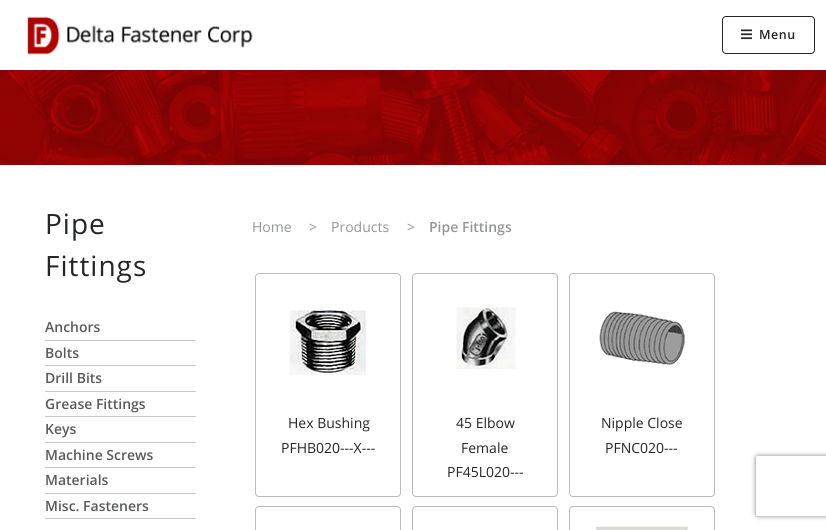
import math
import cairo


def use_color(cr, r, g, b):
  cr.set_source_rgb(r / 255, g / 255, b / 255)

def text(cr, x, y, s, family, size, color, bold=False, italic=False):
  cr.select_font_face(family, cairo.FONT_SLANT_ITALIC if italic else cairo.FONT_SLANT_NORMAL, cairo.FONT_WEIGHT_BOLD if bold else cairo.FONT_WEIGHT_NORMAL)
  cr.set_font_size(size)
  use_color(cr, *color)
  cr.move_to(x, y)
  cr.show_text(s)

def spaced_text(cr, x, y, s, letter, word):
  cr.move_to(x, y)
  for ch in s:
    cr.show_text(ch)
    cr.rel_move_to(letter + word * (ch == ' '), 0)

def box(cr, x, y, w, h, *color):
  use_color(cr, *color)
  cr.rectangle(x, y, w, h)
  cr.fill()

def round_rect(cr, x, y, w, h, r):
  cr.new_sub_path()
  for i, (u, v) in enumerate([(x + w - r, y + h - r), (x + r, y + h - r), (x + r, y + r), (x + w - r, y + r)]):
    cr.arc(u, v, r, i * math.pi / 2, (i + 1) * math.pi / 2)
  cr.close_path()

def shadow(cr, x, y, w, h, r, blur, alpha):
  cr.push_group_with_content(cairo.CONTENT_ALPHA)
  cr.set_operator(cairo.OPERATOR_SOURCE)
  for i in range(15, -16, -2):
    e = blur * i / 6
    if min(w, h) + 2 * e > 0:
      cr.set_source_rgba(0, 0, 0, alpha * math.erfc((i - 1) / 8.5) / 2)
      round_rect(cr, x - e, y - e, w + 2 * e, h + 2 * e, max(0, min(r + e + blur * .6, min(w, h) / 2 + e)))
      cr.fill()
  cr.mask(cr.pop_group())

def picture(cr, path, x, y, w, h):
  cr.save()
  cr.set_source_surface(cairo.ImageSurface.create_from_png(path), x, y)
  cr.rectangle(x, y, w, h)
  cr.fill()
  cr.restore()

def draw(cr):
  use_color(cr, 255, 255, 255)
  cr.paint()
  picture(cr, "img_01.png", 27, 16, 226, 39)
  round_rect(cr, 722.5, 16.5, 92, 37, 3.5)
  use_color(cr, 36, 37, 39)
  cr.set_line_width(1)
  cr.stroke()
  picture(cr, "img_02.png", 741, 29, 11, 11)
  picture(cr, "img_03.png", 0, 70, 826, 95)
  box(cr, 45, 340, 151, 1, 199, 199, 199)
  box(cr, 45, 365, 151, 1, 199, 199, 199)
  box(cr, 45, 391, 151, 1, 199, 199, 199)
  box(cr, 45, 416, 151, 1, 199, 199, 199)
  box(cr, 45, 442, 151, 1, 199, 199, 199)
  box(cr, 45, 467, 151, 1, 199, 199, 199)
  box(cr, 45, 493, 151, 1, 199, 199, 199)
  box(cr, 45, 518, 151, 1, 199, 199, 199)
  round_rect(cr, 255.5, 273.5, 145, 223, 3.5)
  use_color(cr, 187, 187, 187)
  cr.stroke()
  picture(cr, "img_04.png", 289, 310, 77, 66)
  round_rect(cr, 412.5, 273.5, 145, 223, 3.5)
  cr.stroke()
  picture(cr, "img_05.png", 456, 307, 60, 62)
  round_rect(cr, 569.5, 273.5, 145, 223, 3.5)
  cr.stroke()
  picture(cr, "img_06.png", 599, 311, 86, 54)
  round_rect(cr, 255.5, 506.5, 145, 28, 3.5)
  cr.stroke()
  round_rect(cr, 412.5, 506.5, 145, 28, 3.5)
  cr.stroke()
  round_rect(cr, 569.5, 506.5, 145, 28, 3.5)
  cr.stroke()
  picture(cr, "img_07.png", 596, 526, 92, 4)
  cr.save()
  cr.set_fill_rule(cairo.FILL_RULE_EVEN_ODD)
  cr.new_path()
  cr.move_to(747, 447)
  cr.line_to(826, 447)
  cr.line_to(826, 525)
  cr.line_to(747, 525)
  cr.close_path()
  cr.move_to(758, 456)
  cr.line_to(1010, 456)
  cr.curve_to(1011, 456, 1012, 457, 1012, 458)
  cr.line_to(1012, 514)
  cr.curve_to(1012, 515, 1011, 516, 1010, 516)
  cr.line_to(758, 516)
  cr.curve_to(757, 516, 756, 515, 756, 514)
  cr.line_to(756, 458)
  cr.curve_to(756, 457, 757, 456, 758, 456)
  cr.close_path()
  cr.clip()
  use_color(cr, 128, 128, 128)
  shadow(cr, 756, 456, 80, 60, 2, 2.5, 1)
  cr.restore()
  cr.select_font_face("Open Sans SemiBold")
  cr.set_font_size(12.5)
  use_color(cr, 36, 37, 39)
  spaced_text(cr, 759, 39, "Menu", 0.5, 0)
  cr.select_font_face("Open Sans")
  cr.set_font_size(28)
  spaced_text(cr, 45, 234, "Pipe", 1, 0)
  spaced_text(cr, 45, 276, "Fittings", 1, 0)
  text(cr, 45, 332, "Anchors", "Open Sans SemiBold", 14, (88, 89, 91))
  text(cr, 45, 358, "Bolts", "Open Sans SemiBold", 14, (88, 89, 91))
  text(cr, 45, 383, "Drill Bits", "Open Sans SemiBold", 14, (88, 89, 91))
  text(cr, 45, 409, "Grease Fittings", "Open Sans SemiBold", 14, (88, 89, 91))
  text(cr, 45, 434, "Keys", "Open Sans SemiBold", 14, (88, 89, 91))
  text(cr, 45, 460, "Machine Screws", "Open Sans SemiBold", 14, (88, 89, 91))
  text(cr, 45, 485, "Materials", "Open Sans SemiBold", 14, (88, 89, 91))
  text(cr, 45, 511, "Misc. Fasteners", "Open Sans SemiBold", 14, (88, 89, 91))
  text(cr, 252, 232, "Home", "Open Sans", 14, (148, 149, 153))
  text(cr, 309, 232, ">", "Open Sans", 14, (148, 149, 153))
  text(cr, 331, 232, "Products", "Open Sans", 14, (148, 149, 153))
  text(cr, 407, 232, ">", "Open Sans", 14, (148, 149, 153))
  text(cr, 429, 232, "Pipe Fittings", "Open Sans SemiBold", 14, (148, 149, 153))
  text(cr, 288, 428, "Hex Bushing", "Open Sans", 14, (36, 37, 39))
  text(cr, 281, 453, "PFHB020---X---", "Open Sans", 14, (36, 37, 39))
  text(cr, 456, 428, "45 Elbow", "Open Sans", 14, (36, 37, 39))
  text(cr, 461, 453, "Female", "Open Sans", 14, (36, 37, 39))
  text(cr, 447, 477, "PF45L020---", "Open Sans", 14, (36, 37, 39))
  text(cr, 601, 428, "Nipple Close", "Open Sans", 14, (36, 37, 39))
  text(cr, 605, 453, "PFNC020---", "Open Sans", 14, (36, 37, 39))


surface = cairo.ImageSurface(cairo.FORMAT_RGB24, 826, 530)
cr = cairo.Context(surface)
options = cairo.FontOptions()
options.set_hint_metrics(cairo.HINT_METRICS_OFF)
options.set_hint_style(cairo.HINT_STYLE_NONE)
cr.set_font_options(options)
cr.set_miter_limit(4)
draw(cr)
surface.write_to_png("out.png")
